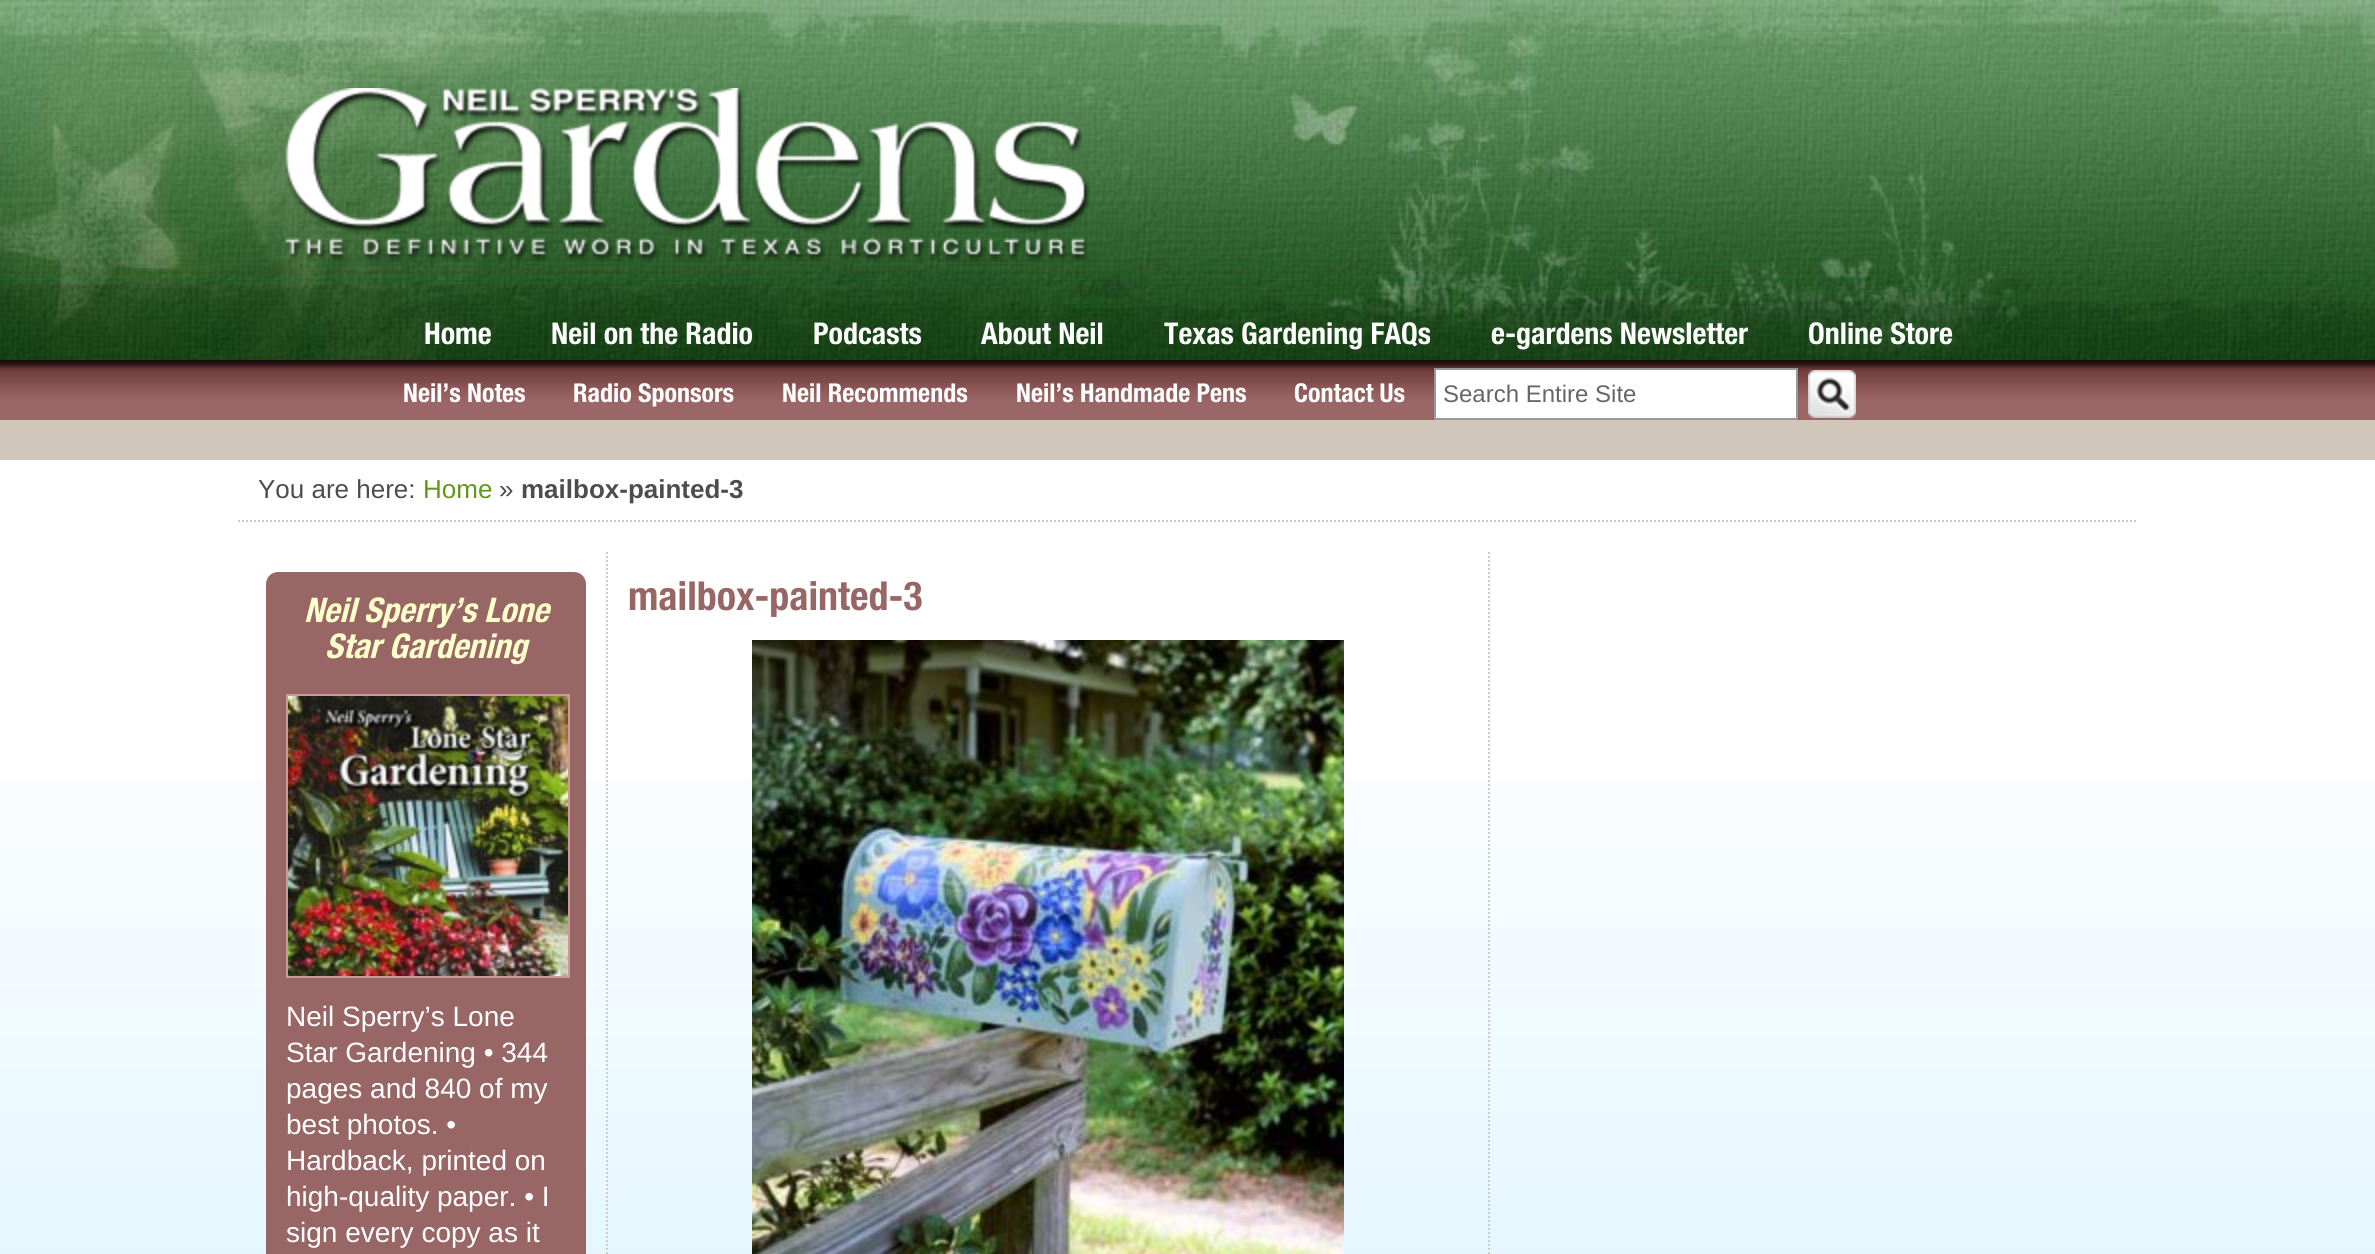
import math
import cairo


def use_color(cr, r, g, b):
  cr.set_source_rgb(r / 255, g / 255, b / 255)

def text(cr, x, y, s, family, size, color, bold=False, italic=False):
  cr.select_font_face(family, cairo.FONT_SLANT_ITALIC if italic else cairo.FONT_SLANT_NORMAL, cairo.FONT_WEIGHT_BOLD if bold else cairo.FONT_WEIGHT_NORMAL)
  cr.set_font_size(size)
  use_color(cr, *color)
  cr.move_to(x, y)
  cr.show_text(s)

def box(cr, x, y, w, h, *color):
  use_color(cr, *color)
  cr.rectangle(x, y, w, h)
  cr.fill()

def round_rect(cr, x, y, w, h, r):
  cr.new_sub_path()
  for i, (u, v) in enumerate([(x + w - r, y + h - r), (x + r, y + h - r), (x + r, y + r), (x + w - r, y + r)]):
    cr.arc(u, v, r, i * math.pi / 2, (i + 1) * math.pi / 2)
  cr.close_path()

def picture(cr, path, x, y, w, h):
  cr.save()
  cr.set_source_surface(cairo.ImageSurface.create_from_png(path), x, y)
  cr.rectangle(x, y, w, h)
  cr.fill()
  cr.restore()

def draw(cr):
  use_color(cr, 255, 255, 255)
  cr.paint()
  picture(cr, "img_01.png", 0, 780, 2375, 474)
  picture(cr, "img_02.png", 0, 0, 2375, 360)
  picture(cr, "img_03.png", 284, 88, 806, 174)
  picture(cr, "img_04.png", 0, 360, 2375, 60)
  use_color(cr, 255, 255, 255)
  cr.rectangle(1435, 369, 362, 50)
  cr.fill_preserve()
  use_color(cr, 153, 153, 153)
  cr.stroke()
  picture(cr, "img_05.png", 1808, 370, 48, 48)
  box(cr, 0, 420, 2375, 40, 208, 198, 186)
  cr.new_path()
  cr.move_to(238, 521)
  cr.line_to(2138, 521)
  use_color(cr, 204, 204, 204)
  cr.set_dash([2, 2])
  cr.stroke()
  cr.new_path()
  cr.move_to(607, 552)
  cr.line_to(607, 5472)
  cr.stroke()
  use_color(cr, 153, 102, 102)
  round_rect(cr, 266, 572, 320, 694, 12)
  cr.fill()
  cr.rectangle(287, 695, 282, 282)
  use_color(cr, 204, 153, 153)
  cr.set_dash([])
  cr.stroke()
  picture(cr, "img_06.png", 288, 696, 280, 280)
  picture(cr, "img_07.png", 752, 640, 592, 614)
  cr.new_path()
  cr.move_to(1489, 552)
  cr.line_to(1489, 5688)
  use_color(cr, 204, 204, 204)
  cr.set_dash([2, 2])
  cr.stroke()
  text(cr, 424, 344, "Home", "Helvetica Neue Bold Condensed", 30, (255, 255, 255), bold=True)
  text(cr, 551, 344, "Neil on the Radio", "Helvetica Neue Bold Condensed", 30, (255, 255, 255), bold=True)
  text(cr, 813, 344, "Podcasts", "Helvetica Neue Bold Condensed", 30, (255, 255, 255), bold=True)
  text(cr, 981, 344, "About Neil", "Helvetica Neue Bold Condensed", 30, (255, 255, 255), bold=True)
  cr.save()
  cr.rectangle(1164, 308, 266, 52)
  cr.clip()
  text(cr, 1164, 344, "Texas Gardening FAQs", "Helvetica Neue Bold Condensed", 30, (255, 255, 255), bold=True)
  cr.restore()
  text(cr, 1491, 344, "e-gardens Newsletter", "Helvetica Neue Bold Condensed", 30, (255, 255, 255), bold=True)
  text(cr, 1808, 344, "Online Store", "Helvetica Neue Bold Condensed", 30, (255, 255, 255), bold=True)
  text(cr, 403, 402, "Neil’s Notes", "Helvetica Neue Bold Condensed", 26, (255, 255, 255), bold=True)
  text(cr, 573, 402, "Radio Sponsors", "Helvetica Neue Bold Condensed", 26, (255, 255, 255), bold=True)
  text(cr, 782, 402, "Neil Recommends", "Helvetica Neue Bold Condensed", 26, (255, 255, 255), bold=True)
  text(cr, 1016, 402, "Neil’s Handmade Pens", "Helvetica Neue Bold Condensed", 26, (255, 255, 255), bold=True)
  text(cr, 1294, 402, "Contact Us", "Helvetica Neue Bold Condensed", 26, (255, 255, 255), bold=True)
  text(cr, 1443, 402, "Search Entire Site", "Liberation Sans", 24, (102, 102, 102))
  text(cr, 258, 498, "You are here:", "Liberation Sans", 26, (77, 77, 77))
  text(cr, 423, 498, "Home", "Liberation Sans", 26, (98, 150, 29))
  text(cr, 499, 498, "»", "Liberation Sans", 26, (77, 77, 77))
  text(cr, 521, 498, "mailbox-painted-3", "Liberation Sans", 26, (77, 77, 77), bold=True)
  text(cr, 304, 622, "Neil Sperry’s Lone", "Helvetica Neue Bold Condensed", 34, (255, 255, 204), bold=True, italic=True)
  text(cr, 325, 658, "Star Gardening", "Helvetica Neue Bold Condensed", 34, (255, 255, 204), bold=True, italic=True)
  text(cr, 286, 1026, "Neil Sperry’s Lone", "Liberation Sans", 28, (255, 255, 255))
  text(cr, 286, 1062, "Star Gardening • 344", "Liberation Sans", 28, (255, 255, 255))
  text(cr, 286, 1098, "pages and 840 of my", "Liberation Sans", 28, (255, 255, 255))
  text(cr, 286, 1134, "best photos. •", "Liberation Sans", 28, (255, 255, 255))
  text(cr, 286, 1170, "Hardback, printed on", "Liberation Sans", 28, (255, 255, 255))
  text(cr, 286, 1206, "high-quality paper. • I", "Liberation Sans", 28, (255, 255, 255))
  text(cr, 286, 1242, "sign every copy as it", "Liberation Sans", 28, (255, 255, 255))
  text(cr, 628, 610, "mailbox-painted-3", "Helvetica Neue Bold Condensed", 40, (153, 102, 102), bold=True)


surface = cairo.ImageSurface(cairo.FORMAT_RGB24, 2375, 1254)
cr = cairo.Context(surface)
options = cairo.FontOptions()
options.set_hint_metrics(cairo.HINT_METRICS_OFF)
options.set_hint_style(cairo.HINT_STYLE_NONE)
cr.set_font_options(options)
cr.set_miter_limit(4)
draw(cr)
surface.write_to_png("out.png")
